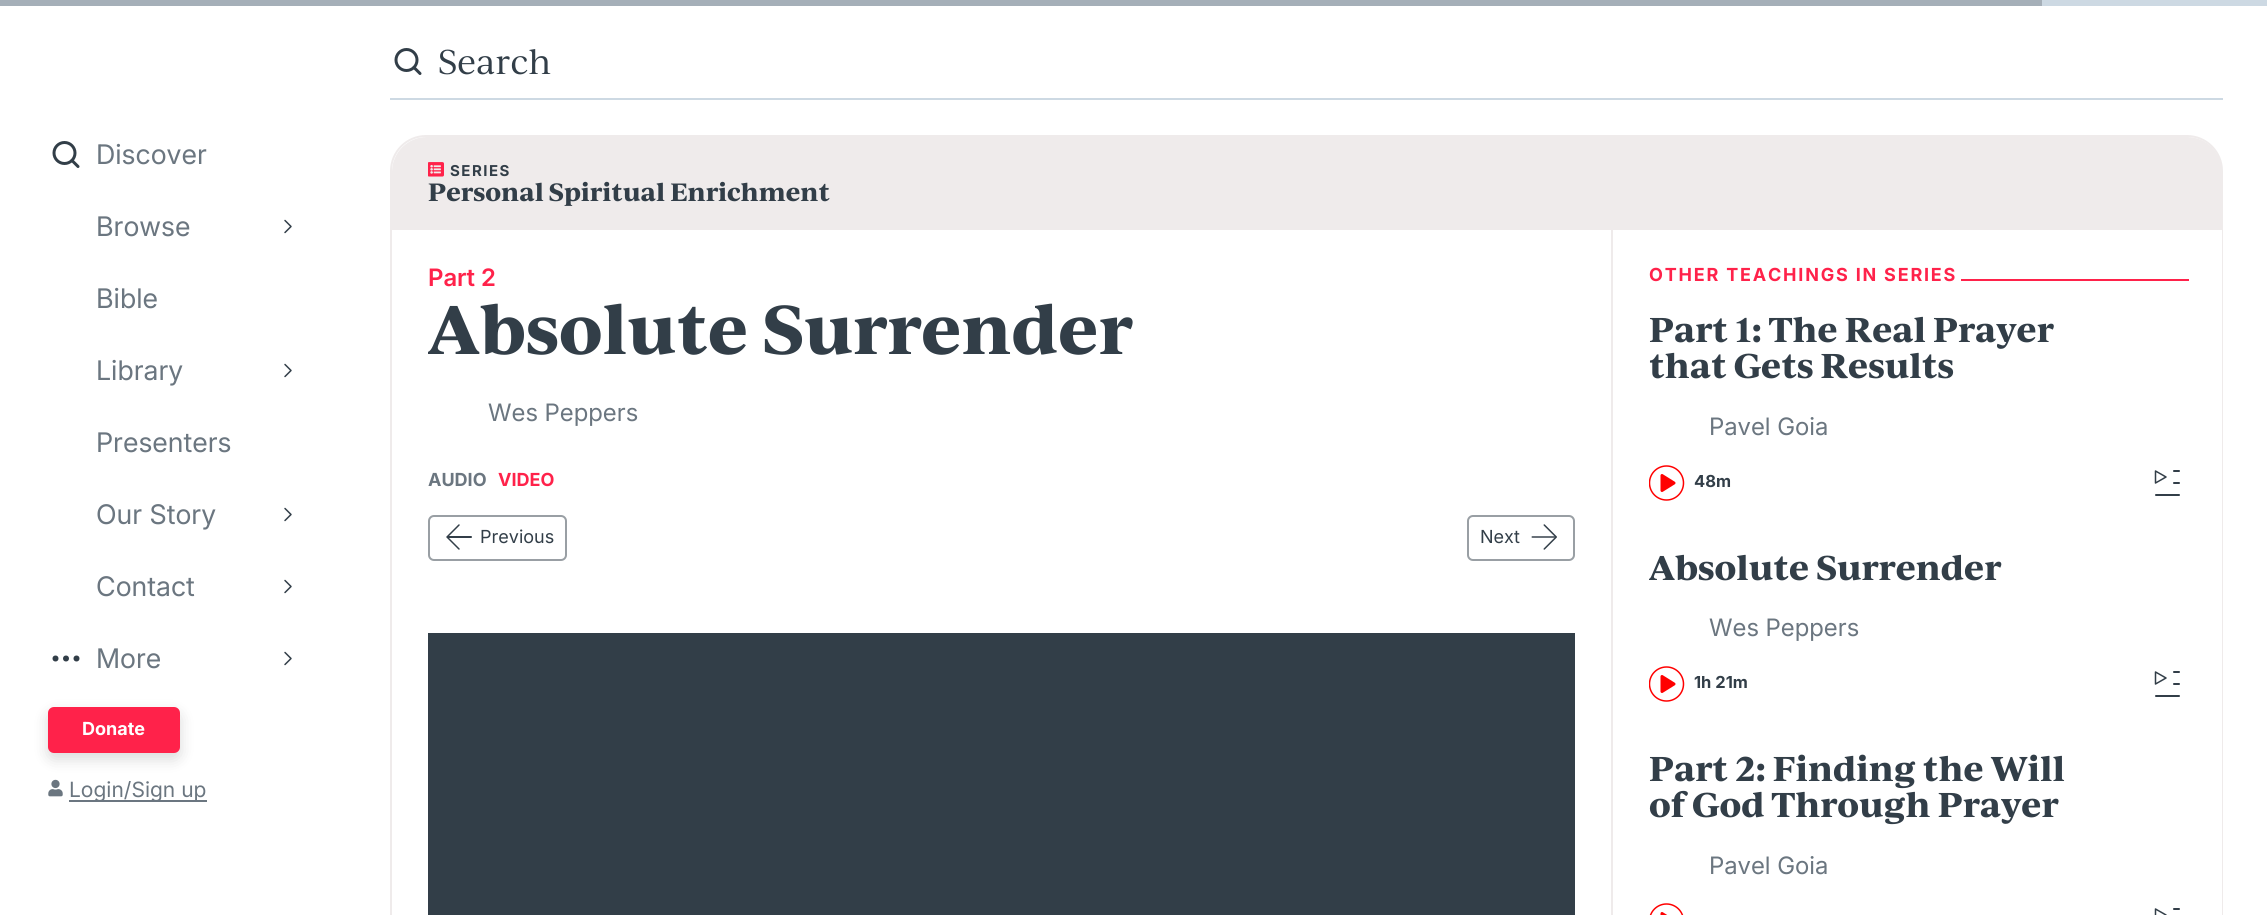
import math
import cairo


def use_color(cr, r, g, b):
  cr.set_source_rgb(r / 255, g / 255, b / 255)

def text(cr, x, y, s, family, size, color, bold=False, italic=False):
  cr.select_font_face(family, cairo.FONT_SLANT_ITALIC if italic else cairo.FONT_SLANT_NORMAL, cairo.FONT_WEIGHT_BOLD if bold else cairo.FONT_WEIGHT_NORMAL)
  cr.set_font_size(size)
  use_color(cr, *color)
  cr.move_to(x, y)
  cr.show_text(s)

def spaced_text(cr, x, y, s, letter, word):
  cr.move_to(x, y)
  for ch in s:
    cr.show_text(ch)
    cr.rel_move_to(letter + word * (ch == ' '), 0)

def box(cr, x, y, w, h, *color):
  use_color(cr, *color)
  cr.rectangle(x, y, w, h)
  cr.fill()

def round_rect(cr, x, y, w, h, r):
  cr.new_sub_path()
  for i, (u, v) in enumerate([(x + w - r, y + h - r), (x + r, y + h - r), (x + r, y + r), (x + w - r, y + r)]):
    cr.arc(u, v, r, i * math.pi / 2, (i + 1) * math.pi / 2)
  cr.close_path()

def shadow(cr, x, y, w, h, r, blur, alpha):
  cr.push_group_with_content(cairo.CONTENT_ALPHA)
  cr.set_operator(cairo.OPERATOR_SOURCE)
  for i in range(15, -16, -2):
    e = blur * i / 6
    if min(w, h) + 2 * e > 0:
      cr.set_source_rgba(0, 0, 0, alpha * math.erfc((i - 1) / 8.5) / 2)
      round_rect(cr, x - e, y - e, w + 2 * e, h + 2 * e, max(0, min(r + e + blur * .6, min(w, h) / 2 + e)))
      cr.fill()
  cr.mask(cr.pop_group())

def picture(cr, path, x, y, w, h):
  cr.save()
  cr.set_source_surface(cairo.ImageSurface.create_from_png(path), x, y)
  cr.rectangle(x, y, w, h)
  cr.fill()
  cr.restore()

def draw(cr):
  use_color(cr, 255, 255, 255)
  cr.paint()
  box(cr, 2042, 0, 225, 6, 205, 217, 227)
  box(cr, 0, 0, 2042, 6, 165, 175, 184)
  cr.arc(64.5, 153, 10.5, 0, 2 * math.pi)
  use_color(cr, 50, 62, 72)
  cr.set_line_width(3)
  cr.stroke()
  cr.new_path()
  cr.move_to(72, 160.5)
  cr.line_to(78, 166.5)
  cr.set_line_cap(cairo.LINE_CAP_ROUND)
  cr.stroke()
  picture(cr, "img_01.png", 284, 219, 8, 15)
  picture(cr, "img_01.png", 284, 363, 8, 15)
  picture(cr, "img_01.png", 284, 507, 8, 15)
  picture(cr, "img_01.png", 284, 579, 8, 15)
  cr.arc(55.5, 658.5, 3, 0, 2 * math.pi)
  cr.fill()
  cr.arc(66, 658.5, 3, 0, 2 * math.pi)
  cr.fill()
  cr.arc(76.5, 658.5, 3, 0, 2 * math.pi)
  cr.fill()
  picture(cr, "img_01.png", 284, 651, 8, 15)
  use_color(cr, 0, 0, 0)
  shadow(cr, 48, 713, 132, 46, 6, 7.5, 0.15)
  use_color(cr, 255, 34, 74)
  round_rect(cr, 49, 708, 130, 44, 5)
  cr.fill_preserve()
  cr.set_line_width(2)
  cr.set_line_cap(cairo.LINE_CAP_BUTT)
  cr.stroke()
  picture(cr, "img_02.png", 48, 779, 15, 18)
  box(cr, 69, 800, 138, 2, 107, 118, 128)
  box(cr, 390, 98, 1833, 2, 205, 217, 227)
  cr.arc(406.5, 60, 10.5, 0, 2 * math.pi)
  use_color(cr, 50, 62, 72)
  cr.set_line_width(3)
  cr.stroke()
  cr.new_path()
  cr.move_to(414, 67.5)
  cr.line_to(420, 73.5)
  cr.set_line_cap(cairo.LINE_CAP_ROUND)
  cr.stroke()
  round_rect(cr, 391, 136, 1831, 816, 35)
  use_color(cr, 239, 235, 235)
  cr.set_line_width(2)
  cr.set_line_cap(cairo.LINE_CAP_BUTT)
  cr.stroke()
  cr.new_path()
  cr.move_to(427, 137)
  cr.line_to(2187, 137)
  cr.curve_to(2206.5, 137, 2222, 152.5, 2222, 172)
  cr.line_to(2222, 230)
  cr.line_to(392, 230)
  cr.line_to(392, 172)
  cr.curve_to(392, 152.5, 407.5, 137, 427, 137)
  cr.close_path()
  cr.fill()
  picture(cr, "img_03.png", 428, 162, 16, 15)
  round_rect(cr, 429, 516, 137, 44, 5)
  use_color(cr, 153, 159, 164)
  cr.stroke()
  picture(cr, "img_04.png", 446, 524, 26, 26)
  round_rect(cr, 1468, 516, 106, 44, 5)
  cr.stroke()
  picture(cr, "img_05.png", 1531, 524, 26, 26)
  box(cr, 428, 633, 1147, 282, 50, 62, 72)
  box(cr, 2221, 230, 1, 685, 255, 255, 255)
  box(cr, 1611, 230, 2, 685, 239, 235, 235)
  box(cr, 1961, 279, 228, 2, 255, 34, 74)
  use_color(cr, 255, 0, 0)
  cr.new_path()
  cr.move_to(1662, 490.5)
  cr.line_to(1662, 475.5)
  cr.line_to(1674, 483)
  cr.close_path()
  cr.fill_preserve()
  cr.set_line_width(3)
  cr.set_line_join(cairo.LINE_JOIN_ROUND)
  cr.stroke()
  cr.save()
  cr.rectangle(1649, 465, 36, 36)
  cr.clip()
  cr.arc(1666.5, 483, 17, 0, 2 * math.pi)
  cr.set_line_width(1.5)
  cr.set_line_join(cairo.LINE_JOIN_MITER)
  cr.stroke()
  cr.restore()
  use_color(cr, 50, 62, 72)
  round_rect(cr, 2173, 470, 7, 2, 1)
  cr.fill()
  cr.new_path()
  cr.move_to(2166, 477)
  cr.line_to(2155.5, 471)
  cr.line_to(2155.5, 483)
  cr.close_path()
  cr.set_line_width(1.5)
  cr.stroke()
  round_rect(cr, 2173, 482, 7, 2, 1)
  cr.fill()
  round_rect(cr, 2155, 494, 25, 2, 1)
  cr.fill()
  use_color(cr, 255, 0, 0)
  cr.new_path()
  cr.move_to(1662, 691.5)
  cr.line_to(1662, 676.5)
  cr.line_to(1674, 684)
  cr.close_path()
  cr.fill_preserve()
  cr.set_line_width(3)
  cr.stroke()
  cr.save()
  cr.rectangle(1649, 666, 36, 36)
  cr.clip()
  cr.arc(1666.5, 684, 17, 0, 2 * math.pi)
  cr.set_line_width(1.5)
  cr.set_line_join(cairo.LINE_JOIN_MITER)
  cr.stroke()
  cr.restore()
  use_color(cr, 50, 62, 72)
  round_rect(cr, 2173, 671, 7, 2, 1)
  cr.fill()
  cr.new_path()
  cr.move_to(2166, 678)
  cr.line_to(2155.5, 672)
  cr.line_to(2155.5, 684)
  cr.close_path()
  cr.set_line_width(1.5)
  cr.stroke()
  round_rect(cr, 2173, 683, 7, 2, 1)
  cr.fill()
  round_rect(cr, 2155, 695, 25, 2, 1)
  cr.fill()
  cr.new_path()
  cr.move_to(1662, 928.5)
  cr.line_to(1662, 913.5)
  cr.line_to(1674, 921)
  cr.close_path()
  use_color(cr, 255, 0, 0)
  cr.set_line_width(3)
  cr.stroke()
  cr.arc(1666.5, 921, 17, 0, 2 * math.pi)
  cr.set_line_width(1.5)
  cr.set_line_join(cairo.LINE_JOIN_MITER)
  cr.stroke()
  use_color(cr, 50, 62, 72)
  round_rect(cr, 2173, 908, 7, 2, 1)
  cr.fill()
  cr.new_path()
  cr.move_to(2166, 915)
  cr.line_to(2155.5, 909)
  cr.line_to(2155.5, 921)
  cr.close_path()
  cr.set_line_join(cairo.LINE_JOIN_ROUND)
  cr.stroke()
  text(cr, 96, 164, "Discover", "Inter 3", 27, (107, 118, 128))
  text(cr, 96, 236, "Browse", "Inter 3", 27, (107, 118, 128))
  text(cr, 96, 308, "Bible", "Inter 3", 27, (107, 118, 128))
  text(cr, 96, 380, "Library", "Inter 3", 27, (107, 118, 128))
  text(cr, 96, 452, "Presenters", "Inter 3", 27, (107, 118, 128))
  text(cr, 96, 524, "Our Story", "Inter 3", 27, (107, 118, 128))
  text(cr, 96, 596, "Contact", "Inter 3", 27, (107, 118, 128))
  text(cr, 96, 668, "More", "Inter 3", 27, (107, 118, 128))
  text(cr, 82, 735, "Donate", "Inter", 18, (255, 255, 255), bold=True)
  text(cr, 69, 797, "Login/Sign up", "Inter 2", 21, (107, 118, 128))
  text(cr, 438, 74, "Search", "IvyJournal", 33, (50, 62, 72))
  cr.select_font_face("Inter", cairo.FONT_SLANT_NORMAL, cairo.FONT_WEIGHT_BOLD)
  cr.set_font_size(15)
  spaced_text(cr, 450, 176, "SERIES", 1.5, 0)
  text(cr, 428, 201, "Personal Spiritual Enrichment", "IvyJournal", 24, (50, 62, 72), bold=True)
  text(cr, 428, 286, "Part 2", "Inter SemiBold", 24, (255, 34, 74))
  text(cr, 428, 354, "Absolute Surrender", "IvyJournal", 66, (50, 62, 72), bold=True)
  text(cr, 488, 421, "Wes Peppers", "Inter", 24, (107, 118, 128))
  text(cr, 428, 486, "AUDIO", "Inter", 18, (107, 118, 128), bold=True)
  text(cr, 498, 486, "VIDEO", "Inter", 18, (255, 34, 74), bold=True)
  text(cr, 480, 543, "Previous", "Inter 2", 18, (50, 62, 72))
  text(cr, 1480, 543, "Next", "Inter 2", 18, (50, 62, 72))
  cr.select_font_face("Inter", cairo.FONT_SLANT_NORMAL, cairo.FONT_WEIGHT_BOLD)
  use_color(cr, 255, 34, 74)
  spaced_text(cr, 1649, 281, "OTHER TEACHINGS IN SERIES", 1.8, 0)
  text(cr, 1649, 342, "Part 1: The Real Prayer", "IvyJournal", 33, (50, 62, 72), bold=True)
  text(cr, 1649, 378, "that Gets Results", "IvyJournal", 33, (50, 62, 72), bold=True)
  text(cr, 1709, 435, "Pavel Goia", "Inter", 24, (107, 118, 128))
  text(cr, 1694, 487, "48m", "Inter", 16.5, (50, 62, 72), bold=True)
  text(cr, 1649, 580, "Absolute Surrender", "IvyJournal", 33, (50, 62, 72), bold=True)
  text(cr, 1709, 636, "Wes Peppers", "Inter", 24, (107, 118, 128))
  text(cr, 1694, 688, "1h 21m", "Inter", 16.5, (50, 62, 72), bold=True)
  text(cr, 1649, 781, "Part 2: Finding the Will", "IvyJournal", 33, (50, 62, 72), bold=True)
  text(cr, 1649, 817, "of God Through Prayer", "IvyJournal", 33, (50, 62, 72), bold=True)
  text(cr, 1709, 874, "Pavel Goia", "Inter", 24, (107, 118, 128))


surface = cairo.ImageSurface(cairo.FORMAT_RGB24, 2267, 915)
cr = cairo.Context(surface)
options = cairo.FontOptions()
options.set_hint_metrics(cairo.HINT_METRICS_OFF)
options.set_hint_style(cairo.HINT_STYLE_NONE)
cr.set_font_options(options)
cr.set_miter_limit(4)
draw(cr)
surface.write_to_png("out.png")
